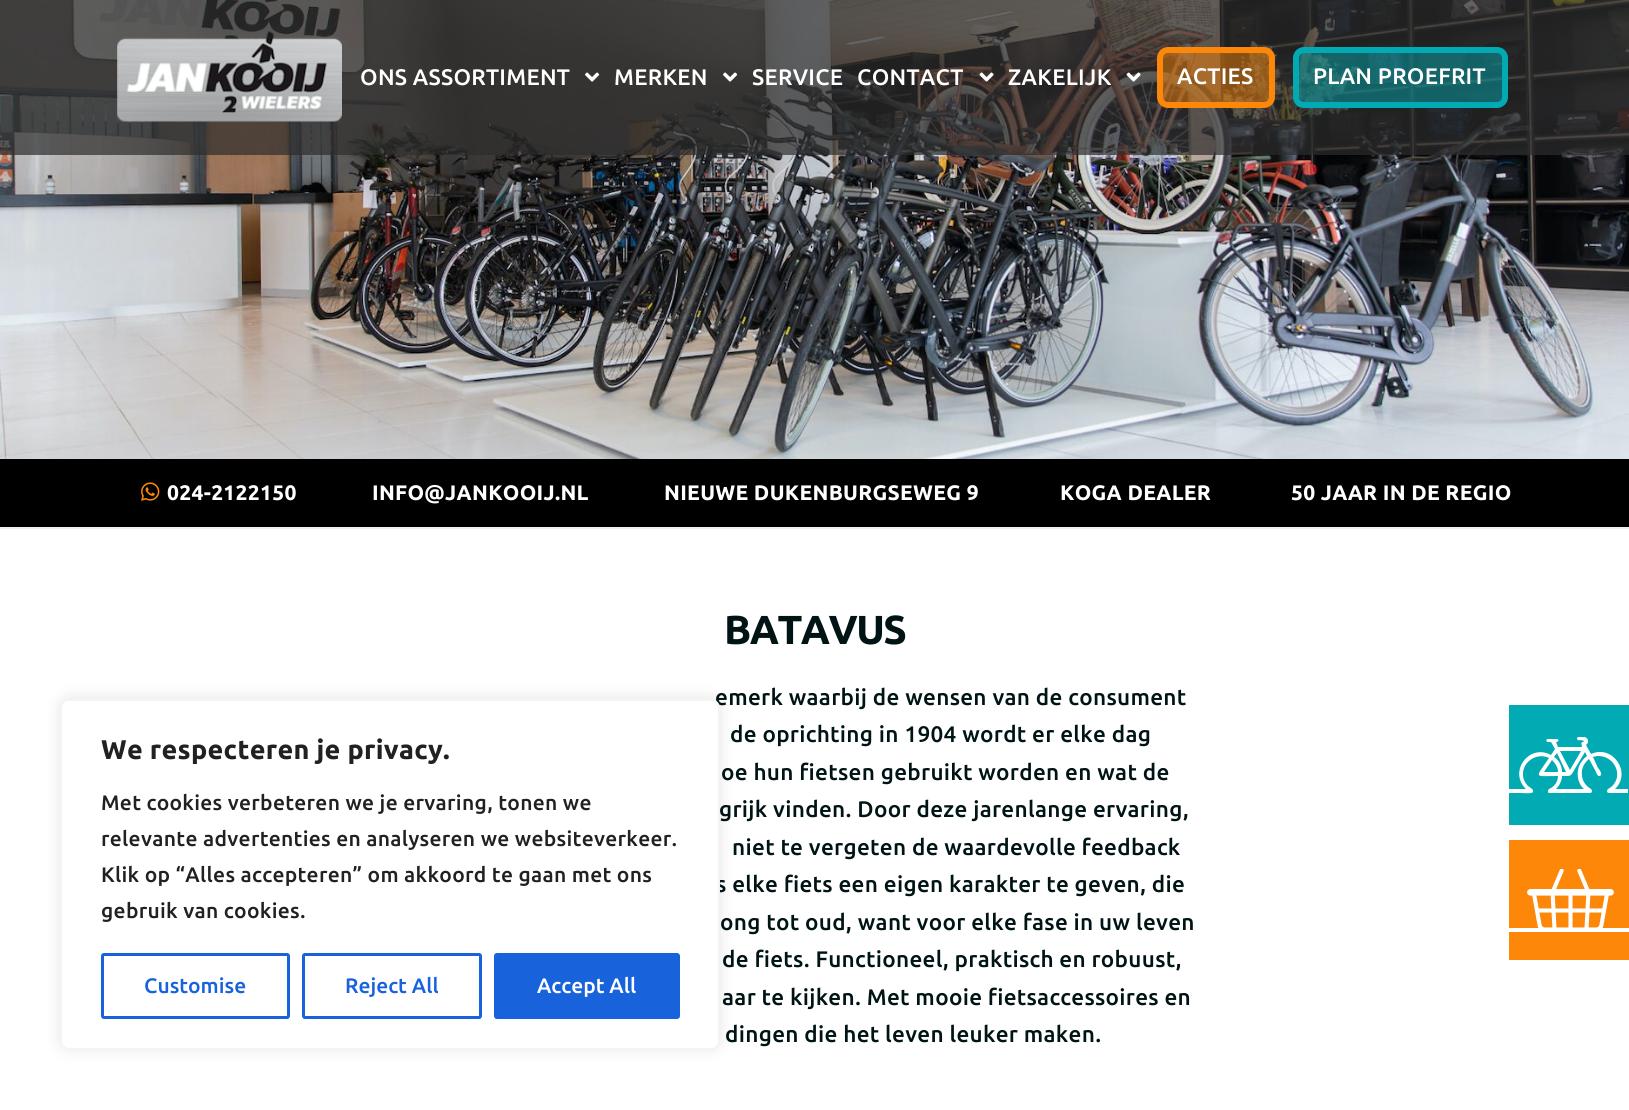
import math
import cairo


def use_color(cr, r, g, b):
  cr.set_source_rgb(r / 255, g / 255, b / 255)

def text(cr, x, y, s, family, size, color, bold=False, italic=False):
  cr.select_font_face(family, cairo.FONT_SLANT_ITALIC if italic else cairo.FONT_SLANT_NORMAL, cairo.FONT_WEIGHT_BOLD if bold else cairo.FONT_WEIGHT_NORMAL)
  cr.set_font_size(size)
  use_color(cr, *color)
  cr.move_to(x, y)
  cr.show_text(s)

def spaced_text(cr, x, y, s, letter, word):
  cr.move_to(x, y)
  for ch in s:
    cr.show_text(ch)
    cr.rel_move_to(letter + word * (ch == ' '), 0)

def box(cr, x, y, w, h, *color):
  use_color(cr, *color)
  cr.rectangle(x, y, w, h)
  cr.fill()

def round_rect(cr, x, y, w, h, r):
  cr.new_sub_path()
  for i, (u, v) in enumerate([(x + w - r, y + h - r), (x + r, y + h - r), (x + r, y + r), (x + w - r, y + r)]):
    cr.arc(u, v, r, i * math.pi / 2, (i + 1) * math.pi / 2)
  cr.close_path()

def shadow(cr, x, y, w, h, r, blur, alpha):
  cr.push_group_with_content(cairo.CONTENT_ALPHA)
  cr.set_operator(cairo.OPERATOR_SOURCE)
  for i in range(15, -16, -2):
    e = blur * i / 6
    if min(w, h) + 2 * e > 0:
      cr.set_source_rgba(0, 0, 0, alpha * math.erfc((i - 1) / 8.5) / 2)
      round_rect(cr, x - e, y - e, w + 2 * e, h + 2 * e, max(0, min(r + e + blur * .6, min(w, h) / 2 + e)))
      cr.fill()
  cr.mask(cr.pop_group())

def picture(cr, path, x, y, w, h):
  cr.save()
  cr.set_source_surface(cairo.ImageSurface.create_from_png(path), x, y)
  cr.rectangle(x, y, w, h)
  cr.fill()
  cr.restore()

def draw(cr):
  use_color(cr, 255, 255, 255)
  cr.paint()
  box(cr, 0, 527, 1629, 2, 240, 240, 240)
  picture(cr, "img_01.png", 0, 0, 1629, 459)
  cr.set_source_rgba(0.173, 0.173, 0.173, 0.7)
  cr.rectangle(0, 0, 1629, 155)
  cr.fill()
  picture(cr, "img_02.png", 117, 31, 225, 91)
  picture(cr, "img_03.png", 585, 72, 15, 10)
  picture(cr, "img_04.png", 723, 72, 15, 10)
  picture(cr, "img_05.png", 979, 72, 15, 10)
  picture(cr, "img_06.png", 1126, 72, 15, 10)
  cr.set_source_rgba(0.992, 0.529, 0.031, 0.47)
  round_rect(cr, 1160, 50, 112, 55, 8)
  cr.fill_preserve()
  use_color(cr, 253, 135, 8)
  cr.set_line_width(6)
  cr.stroke()
  cr.set_source_rgba(0.008, 0.671, 0.706, 0.47)
  round_rect(cr, 1296, 50, 209, 55, 8)
  cr.fill_preserve()
  use_color(cr, 2, 171, 180)
  cr.stroke()
  box(cr, 0, 459, 1629, 68, 0, 0, 0)
  picture(cr, "img_07.png", 141, 482, 19, 19)
  box(cr, 1509, 705, 120, 120, 2, 171, 180)
  cr.save()
  cr.rectangle(1509, 737, 120, 57)
  cr.clip()
  use_color(cr, 255, 255, 255)
  cr.set_fill_rule(cairo.FILL_RULE_EVEN_ODD)
  cr.new_path()
  cr.move_to(1509, 793)
  cr.line_to(1509, 789)
  cr.line_to(1526, 789)
  cr.curve_to(1508, 772, 1529, 743, 1551, 755)
  cr.line_to(1555, 749)
  cr.line_to(1551, 742)
  cr.line_to(1547, 742)
  cr.curve_to(1546, 741, 1546, 739, 1548, 739)
  cr.line_to(1557, 739)
  cr.curve_to(1560, 740, 1558, 742, 1556, 742)
  cr.line_to(1558, 747)
  cr.line_to(1582, 747)
  cr.curve_to(1582, 745, 1580, 742, 1583, 742)
  cr.curve_to(1583, 742, 1585, 741, 1584, 741)
  cr.line_to(1581, 740)
  cr.curve_to(1580, 740, 1578, 741, 1577, 739)
  cr.curve_to(1576, 735, 1589, 735, 1588, 742)
  cr.curve_to(1588, 743, 1587, 744, 1586, 745)
  cr.line_to(1591, 754)
  cr.curve_to(1613, 744, 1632, 773, 1615, 789)
  cr.line_to(1628, 789)
  cr.line_to(1628, 793)
  cr.line_to(1609, 793)
  cr.curve_to(1608, 793, 1607, 792, 1607, 792)
  cr.curve_to(1607, 791, 1607, 790, 1608, 789)
  cr.curve_to(1616, 785, 1620, 775, 1615, 766)
  cr.curve_to(1611, 758, 1601, 754, 1593, 757)
  cr.line_to(1598, 768)
  cr.curve_to(1599, 769, 1603, 774, 1600, 776)
  cr.curve_to(1597, 777, 1596, 771, 1595, 770)
  cr.line_to(1589, 759)
  cr.curve_to(1584, 763, 1581, 769, 1582, 775)
  cr.curve_to(1582, 781, 1586, 786, 1591, 789)
  cr.curve_to(1592, 790, 1592, 791, 1592, 792)
  cr.curve_to(1592, 792, 1591, 793, 1590, 793)
  cr.line_to(1550, 793)
  cr.curve_to(1549, 793, 1548, 793, 1548, 792)
  cr.curve_to(1548, 791, 1548, 790, 1549, 789)
  cr.curve_to(1554, 787, 1558, 782, 1558, 776)
  cr.curve_to(1533, 776, 1535, 779, 1549, 758)
  cr.curve_to(1537, 752, 1522, 762, 1523, 775)
  cr.curve_to(1523, 779, 1525, 783, 1528, 786)
  cr.curve_to(1529, 787, 1534, 789, 1533, 792)
  cr.curve_to(1532, 794, 1523, 793, 1520, 793)
  cr.close_path()
  cr.move_to(1581, 751)
  cr.line_to(1560, 751)
  cr.line_to(1570, 770)
  cr.close_path()
  cr.move_to(1580, 764)
  cr.curve_to(1582, 761, 1584, 758, 1587, 756)
  cr.line_to(1585, 752)
  cr.line_to(1576, 767)
  cr.curve_to(1570, 777, 1572, 776, 1562, 776)
  cr.curve_to(1562, 781, 1559, 786, 1556, 789)
  cr.line_to(1584, 789)
  cr.curve_to(1577, 783, 1576, 772, 1580, 764)
  cr.close_path()
  cr.move_to(1554, 757)
  cr.curve_to(1559, 760, 1562, 766, 1562, 772)
  cr.line_to(1566, 772)
  cr.line_to(1557, 753)
  cr.close_path()
  cr.move_to(1544, 772)
  cr.line_to(1558, 772)
  cr.curve_to(1558, 767, 1555, 763, 1552, 760)
  cr.close_path()
  cr.fill()
  cr.restore()
  box(cr, 1509, 840, 120, 120, 253, 135, 8)
  picture(cr, "img_08.png", 1509, 869, 120, 63)
  use_color(cr, 172, 171, 171)
  shadow(cr, 60, 698, 660, 351, 9, 7.5, 0.3)
  cr.select_font_face("Ubuntu Medium")
  cr.set_font_size(22.5)
  use_color(cr, 255, 255, 255)
  spaced_text(cr, 360, 85, "ONS ASSORTIMENT", 0.3, 0)
  spaced_text(cr, 614, 85, "MERKEN", 0.3, 0)
  spaced_text(cr, 752, 85, "SERVICE", 0.3, 0)
  spaced_text(cr, 857, 85, "CONTACT", 0.3, 0)
  spaced_text(cr, 1008, 85, "ZAKELIJK", 0.3, 0)
  spaced_text(cr, 1177, 84, "ACTIES", 0.3, 0)
  spaced_text(cr, 1313, 84, "PLAN PROEFRIT", 0.3, 0)
  cr.select_font_face("Ubuntu", cairo.FONT_SLANT_NORMAL, cairo.FONT_WEIGHT_BOLD)
  cr.set_font_size(21)
  spaced_text(cr, 167, 500, "024-2122150", 0.3, 0)
  spaced_text(cr, 372, 500, "INFO@JANKOOIJ.NL", 0.3, 0)
  spaced_text(cr, 664, 500, "NIEUWE DUKENBURGSEWEG 9", 0.3, 0)
  spaced_text(cr, 1060, 500, "KOGA DEALER", 0.3, 0)
  spaced_text(cr, 1291, 500, "50 JAAR IN DE REGIO", 0.3, 0)
  cr.set_font_size(40.5)
  use_color(cr, 0, 20, 21)
  spaced_text(cr, 724, 644, "BATAVUS", -1.5, 0)
  cr.select_font_face("Ubuntu Medium")
  cr.set_font_size(22.5)
  spaced_text(cr, 715, 705, "emerk waarbij de wensen van de consument", 0.3, 0)
  spaced_text(cr, 730, 742, "de oprichting in 1904 wordt er elke dag", 0.3, 0)
  spaced_text(cr, 721, 780, "oe hun fietsen gebruikt worden en wat de", 0.3, 0)
  spaced_text(cr, 719, 817, "grijk vinden. Door deze jarenlange ervaring,", 0.3, 0)
  spaced_text(cr, 732, 855, "niet te vergeten de waardevolle feedback", 0.3, 0)
  spaced_text(cr, 716, 892, "s elke fiets een eigen karakter te geven, die", 0.3, 0)
  spaced_text(cr, 720, 930, "ong tot oud, want voor elke fase in uw leven", 0.3, 0)
  spaced_text(cr, 722, 967, "de fiets. Functioneel, praktisch en robuust,", 0.3, 0)
  spaced_text(cr, 722, 1005, "aar te kijken. Met mooie fietsaccessoires en", 0.3, 0)
  spaced_text(cr, 725, 1042, "dingen die het leven leuker maken.", 0.3, 0)
  use_color(cr, 255, 255, 255)
  round_rect(cr, 61, 700, 658, 349, 8)
  cr.fill_preserve()
  use_color(cr, 244, 244, 244)
  cr.set_line_width(2)
  cr.stroke()
  cr.select_font_face("Ubuntu", cairo.FONT_SLANT_NORMAL, cairo.FONT_WEIGHT_BOLD)
  cr.set_font_size(27)
  use_color(cr, 33, 33, 33)
  spaced_text(cr, 101, 759, "We respecteren je privacy.", 0.3, 0)
  cr.select_font_face("Ubuntu Medium")
  cr.set_font_size(21)
  spaced_text(cr, 101, 810, "Met cookies verbeteren we je ervaring, tonen we", 0.3, 0)
  spaced_text(cr, 101, 846, "relevante advertenties en analyseren we websiteverkeer.", 0.3, 0)
  spaced_text(cr, 101, 882, "Klik op “Alles accepteren” om akkoord te gaan met ons", 0.3, 0)
  spaced_text(cr, 101, 918, "gebruik van cookies.", 0.3, 0)
  round_rect(cr, 102.5, 954.5, 186, 63, 1.5)
  use_color(cr, 24, 99, 220)
  cr.set_line_width(3)
  cr.stroke()
  text(cr, 144, 993, "Customise", "Ubuntu Medium", 21, (24, 99, 220))
  round_rect(cr, 303.5, 954.5, 177, 63, 1.5)
  cr.stroke()
  text(cr, 345, 993, "Reject All", "Ubuntu Medium", 21, (24, 99, 220))
  round_rect(cr, 495.5, 954.5, 183, 63, 1.5)
  cr.fill_preserve()
  cr.stroke()
  text(cr, 537, 993, "Accept All", "Ubuntu Medium", 21, (255, 255, 255))


surface = cairo.ImageSurface(cairo.FORMAT_RGB24, 1629, 1110)
cr = cairo.Context(surface)
options = cairo.FontOptions()
options.set_hint_metrics(cairo.HINT_METRICS_OFF)
options.set_hint_style(cairo.HINT_STYLE_NONE)
cr.set_font_options(options)
cr.set_miter_limit(4)
draw(cr)
surface.write_to_png("out.png")
